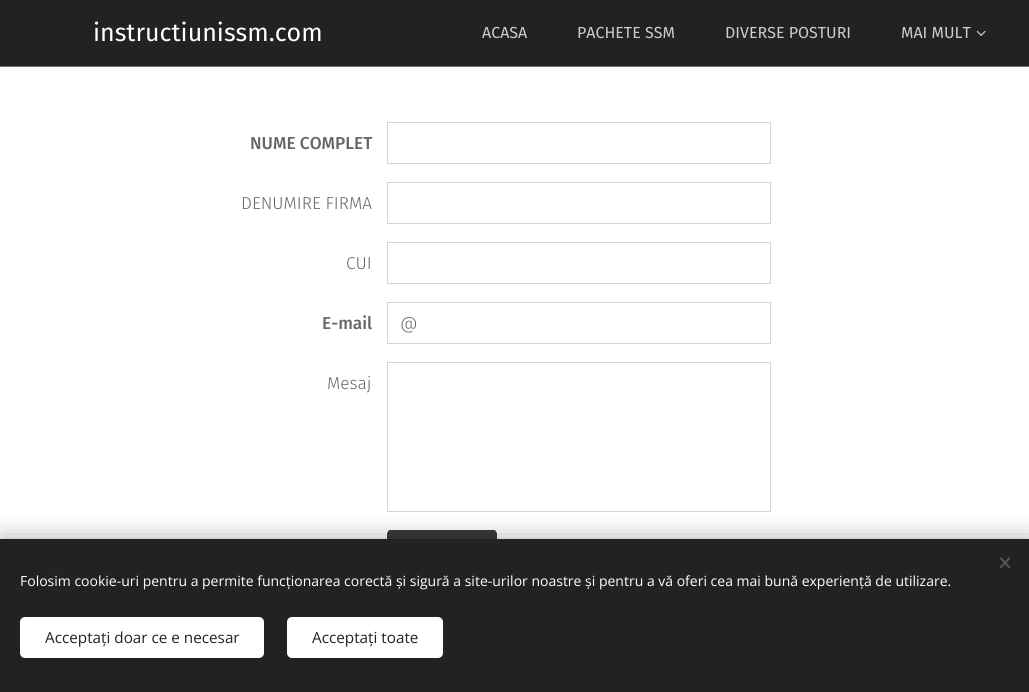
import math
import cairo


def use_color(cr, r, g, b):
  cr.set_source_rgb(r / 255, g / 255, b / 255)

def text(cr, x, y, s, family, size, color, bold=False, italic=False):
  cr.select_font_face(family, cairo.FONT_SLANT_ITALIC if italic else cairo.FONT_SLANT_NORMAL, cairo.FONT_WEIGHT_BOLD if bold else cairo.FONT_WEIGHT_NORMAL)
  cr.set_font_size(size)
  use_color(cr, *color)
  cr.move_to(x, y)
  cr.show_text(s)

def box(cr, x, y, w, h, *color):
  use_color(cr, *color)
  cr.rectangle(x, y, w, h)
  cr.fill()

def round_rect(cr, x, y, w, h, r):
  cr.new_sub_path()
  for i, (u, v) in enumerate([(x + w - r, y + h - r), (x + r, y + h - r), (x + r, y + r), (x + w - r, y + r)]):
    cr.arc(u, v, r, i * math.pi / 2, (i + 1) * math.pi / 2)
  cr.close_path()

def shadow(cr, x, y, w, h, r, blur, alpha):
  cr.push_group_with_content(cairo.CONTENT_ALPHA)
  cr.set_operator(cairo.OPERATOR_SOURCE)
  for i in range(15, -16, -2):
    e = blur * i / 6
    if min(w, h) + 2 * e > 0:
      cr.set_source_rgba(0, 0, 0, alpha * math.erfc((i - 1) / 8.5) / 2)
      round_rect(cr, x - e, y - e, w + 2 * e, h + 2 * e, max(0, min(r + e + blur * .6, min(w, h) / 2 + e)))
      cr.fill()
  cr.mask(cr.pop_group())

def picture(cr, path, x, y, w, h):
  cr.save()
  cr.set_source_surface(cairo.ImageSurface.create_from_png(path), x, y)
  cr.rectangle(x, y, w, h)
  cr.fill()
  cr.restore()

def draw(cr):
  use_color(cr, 255, 255, 255)
  cr.paint()
  box(cr, 0, 0, 1029, 66, 34, 34, 34)
  box(cr, 0, 66, 1029, 1, 110, 110, 110)
  picture(cr, "img_01.png", 976, 30, 10, 6)
  cr.rectangle(387.5, 122.5, 383, 41)
  use_color(cr, 212, 212, 212)
  cr.set_line_width(1)
  cr.stroke()
  cr.rectangle(387.5, 182.5, 383, 41)
  cr.stroke()
  cr.rectangle(387.5, 242.5, 383, 41)
  cr.stroke()
  cr.rectangle(387.5, 302.5, 383, 41)
  cr.stroke()
  cr.rectangle(387.5, 362.5, 383, 149)
  cr.stroke()
  use_color(cr, 57, 57, 57)
  round_rect(cr, 387, 530, 110, 53, 5)
  cr.fill()
  cr.new_path()
  cr.move_to(392, 530)
  cr.curve_to(390, 530, 389, 530, 388, 531)
  cr.line_to(390, 533)
  cr.line_to(392, 532)
  cr.line_to(492, 532)
  cr.line_to(494, 533)
  cr.line_to(496, 531)
  cr.curve_to(495, 530, 494, 530, 492, 530)
  cr.close_path()
  cr.fill()
  cr.new_path()
  cr.move_to(497, 578)
  cr.line_to(497, 535)
  cr.curve_to(497, 534, 496, 532, 496, 531)
  cr.line_to(494, 533)
  cr.curve_to(496, 535, 495, 566, 495, 571)
  cr.line_to(495, 579)
  cr.line_to(496, 581)
  cr.close_path()
  cr.fill()
  cr.new_path()
  cr.move_to(387, 535)
  cr.line_to(387, 578)
  cr.curve_to(387, 579, 387, 580, 388, 581)
  cr.line_to(389, 579)
  cr.line_to(389, 571)
  cr.curve_to(389, 566, 388, 535, 390, 533)
  cr.line_to(388, 531)
  cr.curve_to(388, 532, 387, 534, 387, 535)
  cr.close_path()
  cr.fill()
  use_color(cr, 0, 0, 0)
  shadow(cr, 0, 539, 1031, 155, 0, 12.5, 0.33)
  box(cr, 0, 539, 1029, 153, 34, 34, 34)
  use_color(cr, 85, 85, 85)
  cr.new_path()
  cr.move_to(999.5, 567)
  cr.line_to(1009, 557)
  cr.line_to(1010.5, 558.5)
  cr.line_to(1001, 568.5)
  cr.close_path()
  cr.fill()
  cr.new_path()
  cr.move_to(1001, 557)
  cr.line_to(1010.5, 567)
  cr.line_to(1009, 568.5)
  cr.line_to(999.5, 558.5)
  cr.close_path()
  cr.fill()
  use_color(cr, 255, 255, 255)
  round_rect(cr, 20, 617, 244, 41, 5)
  cr.fill()
  round_rect(cr, 287, 617, 156, 41, 5)
  cr.fill()
  text(cr, 93, 41, "instructiunissm.com", "Fira Sans", 25, (255, 255, 255))
  text(cr, 482, 38, "ACASA", "Fira Sans", 16, (204, 204, 204))
  text(cr, 577, 38, "PACHETE SSM", "Fira Sans", 16, (204, 204, 204))
  text(cr, 725, 38, "DIVERSE POSTURI", "Fira Sans", 16, (204, 204, 204))
  text(cr, 901, 38, "MAI MULT", "Fira Sans", 16, (204, 204, 204))
  text(cr, 250, 149, "NUME COMPLET", "Fira Sans Medium", 17.25, (102, 102, 102))
  text(cr, 241, 209, "DENUMIRE FIRMA", "Fira Sans Light", 17.25, (102, 102, 102))
  text(cr, 346, 269, "CUI", "Fira Sans Light", 17.25, (102, 102, 102))
  text(cr, 322, 329, "E-mail", "Fira Sans Medium", 17.25, (102, 102, 102))
  text(cr, 400, 329, "@", "Fira Sans Light", 17.25, (102, 102, 102))
  text(cr, 327, 389, "Mesaj", "Fira Sans Light", 17.25, (102, 102, 102))
  text(cr, 20, 586, "Folosim cookie-uri pentru a permite funcționarea corectă și sigură a site-urilor noastre și pentru a vă oferi cea mai bună experiență de utilizare.", "Open Sans", 14, (255, 255, 255))
  text(cr, 45, 643, "Acceptați doar ce e necesar", "Open Sans", 15.25, (34, 34, 34))
  text(cr, 312, 643, "Acceptați toate", "Open Sans", 15.25, (34, 34, 34))


surface = cairo.ImageSurface(cairo.FORMAT_RGB24, 1029, 692)
cr = cairo.Context(surface)
options = cairo.FontOptions()
options.set_hint_metrics(cairo.HINT_METRICS_OFF)
options.set_hint_style(cairo.HINT_STYLE_NONE)
cr.set_font_options(options)
cr.set_miter_limit(4)
draw(cr)
surface.write_to_png("out.png")
